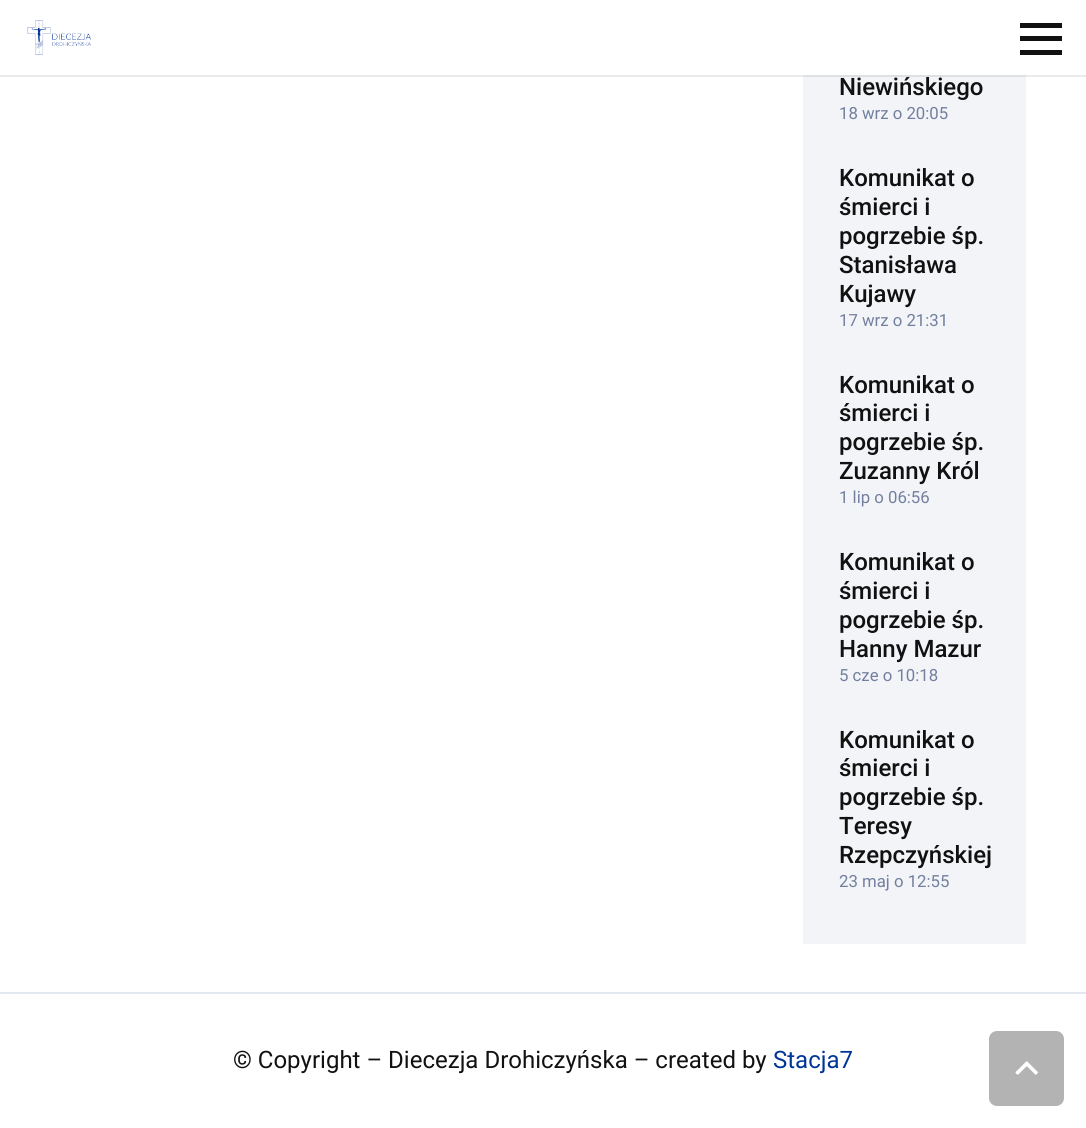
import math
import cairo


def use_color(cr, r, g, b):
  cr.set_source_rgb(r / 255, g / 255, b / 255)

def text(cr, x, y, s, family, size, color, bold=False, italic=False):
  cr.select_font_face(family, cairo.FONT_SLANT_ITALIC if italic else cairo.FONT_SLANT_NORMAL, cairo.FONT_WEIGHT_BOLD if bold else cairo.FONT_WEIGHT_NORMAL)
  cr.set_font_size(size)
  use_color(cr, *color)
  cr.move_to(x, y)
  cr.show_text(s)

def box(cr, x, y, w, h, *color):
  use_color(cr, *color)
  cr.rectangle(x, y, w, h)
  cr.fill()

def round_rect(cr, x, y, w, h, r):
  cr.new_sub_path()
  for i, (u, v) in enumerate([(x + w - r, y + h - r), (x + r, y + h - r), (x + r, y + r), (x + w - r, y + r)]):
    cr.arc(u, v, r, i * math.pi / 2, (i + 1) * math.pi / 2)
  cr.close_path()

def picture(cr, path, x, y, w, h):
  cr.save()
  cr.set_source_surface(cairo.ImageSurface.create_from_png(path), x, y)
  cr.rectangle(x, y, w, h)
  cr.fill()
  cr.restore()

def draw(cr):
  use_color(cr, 255, 255, 255)
  cr.paint()
  box(cr, 0, 75, 1086, 2, 235, 235, 235)
  picture(cr, "img_01.png", 27, 20, 64, 35)
  box(cr, 1020, 36, 42, 5, 17, 17, 17)
  box(cr, 1020, 23, 42, 5, 17, 17, 17)
  box(cr, 1020, 50, 42, 5, 17, 17, 17)
  box(cr, 803, 77, 223, 867, 242, 244, 247)
  box(cr, 803, 75, 223, 2, 223, 224, 227)
  box(cr, 0, 992, 1086, 2, 227, 231, 240)
  use_color(cr, 179, 179, 179)
  round_rect(cr, 989, 1031, 75, 75, 8)
  cr.fill()
  picture(cr, "img_02.png", 1015, 1061, 23, 14)
  text(cr, 839, 95, "Niewińskiego", "Roboto Medium", 24, (17, 17, 17))
  text(cr, 839, 119, "18 wrz o 20:05", "Roboto", 16.75, (114, 127, 159))
  text(cr, 839, 186, "Komunikat o", "Roboto Medium", 24, (17, 17, 17))
  text(cr, 839, 215, "śmierci i", "Roboto Medium", 24, (17, 17, 17))
  text(cr, 839, 244, "pogrzebie śp.", "Roboto Medium", 24, (17, 17, 17))
  text(cr, 839, 273, "Stanisława", "Roboto Medium", 24, (17, 17, 17))
  text(cr, 839, 302, "Kujawy", "Roboto Medium", 24, (17, 17, 17))
  text(cr, 839, 326, "17 wrz o 21:31", "Roboto", 16.75, (114, 127, 159))
  text(cr, 839, 393, "Komunikat o", "Roboto Medium", 24, (17, 17, 17))
  text(cr, 839, 421, "śmierci i", "Roboto Medium", 24, (17, 17, 17))
  text(cr, 839, 450, "pogrzebie śp.", "Roboto Medium", 24, (17, 17, 17))
  text(cr, 839, 479, "Zuzanny Król", "Roboto Medium", 24, (17, 17, 17))
  text(cr, 839, 503, "1 lip o 06:56", "Roboto", 16.75, (114, 127, 159))
  text(cr, 839, 570, "Komunikat o", "Roboto Medium", 24, (17, 17, 17))
  text(cr, 839, 599, "śmierci i", "Roboto Medium", 24, (17, 17, 17))
  text(cr, 839, 628, "pogrzebie śp.", "Roboto Medium", 24, (17, 17, 17))
  text(cr, 839, 657, "Hanny Mazur", "Roboto Medium", 24, (17, 17, 17))
  text(cr, 839, 681, "5 cze o 10:18", "Roboto", 16.75, (114, 127, 159))
  text(cr, 839, 748, "Komunikat o", "Roboto Medium", 24, (17, 17, 17))
  text(cr, 839, 776, "śmierci i", "Roboto Medium", 24, (17, 17, 17))
  text(cr, 839, 805, "pogrzebie śp.", "Roboto Medium", 24, (17, 17, 17))
  text(cr, 839, 834, "Teresy", "Roboto Medium", 24, (17, 17, 17))
  text(cr, 839, 863, "Rzepczyńskiej", "Roboto Medium", 24, (17, 17, 17))
  text(cr, 839, 887, "23 maj o 12:55", "Roboto", 16.75, (114, 127, 159))
  text(cr, 233, 1068, "© Copyright – Diecezja Drohiczyńska – created by", "Roboto", 24, (17, 17, 17))
  text(cr, 773, 1068, "Stacja7", "Roboto", 24, (0, 53, 152))


surface = cairo.ImageSurface(cairo.FORMAT_RGB24, 1086, 1128)
cr = cairo.Context(surface)
options = cairo.FontOptions()
options.set_hint_metrics(cairo.HINT_METRICS_OFF)
options.set_hint_style(cairo.HINT_STYLE_NONE)
cr.set_font_options(options)
cr.set_miter_limit(4)
draw(cr)
surface.write_to_png("out.png")
